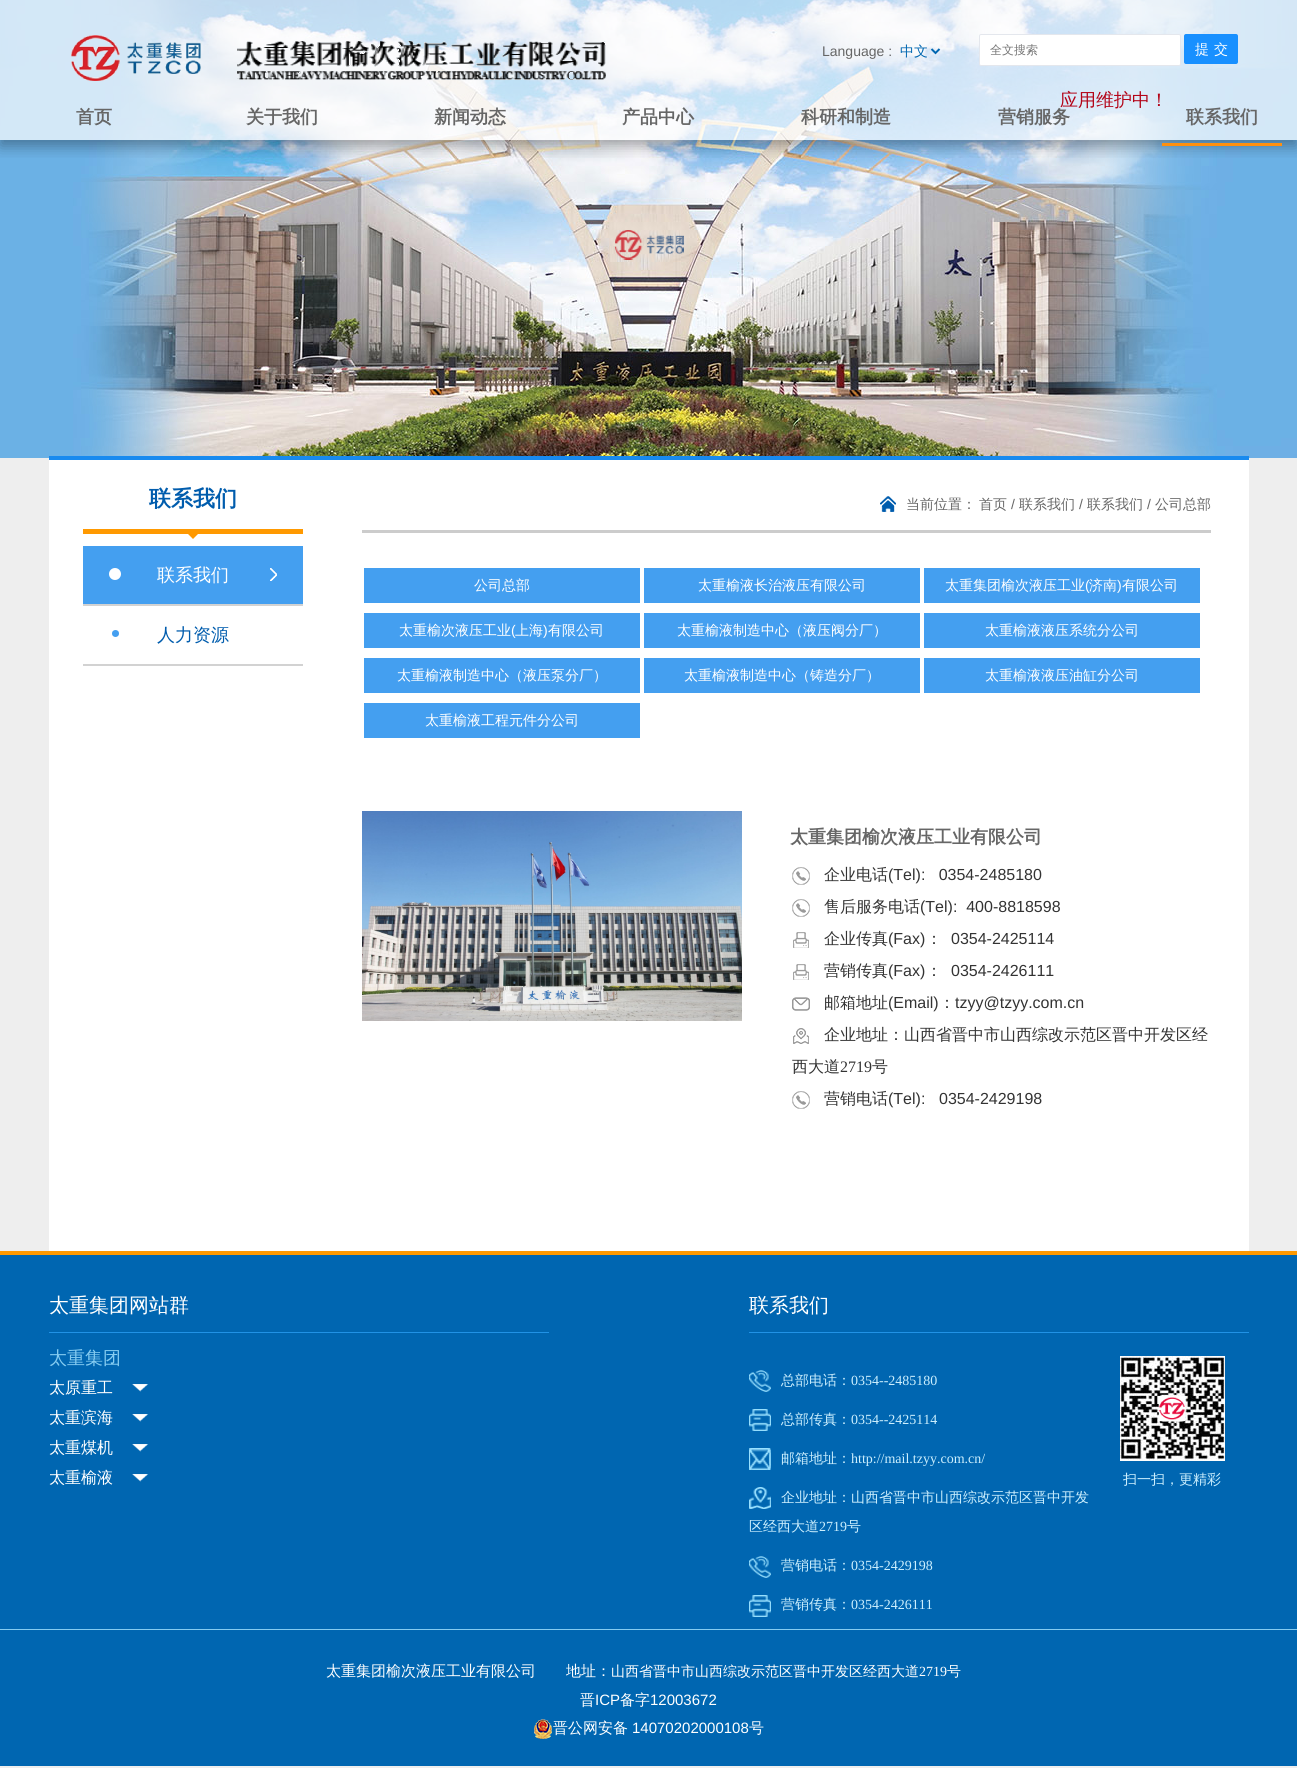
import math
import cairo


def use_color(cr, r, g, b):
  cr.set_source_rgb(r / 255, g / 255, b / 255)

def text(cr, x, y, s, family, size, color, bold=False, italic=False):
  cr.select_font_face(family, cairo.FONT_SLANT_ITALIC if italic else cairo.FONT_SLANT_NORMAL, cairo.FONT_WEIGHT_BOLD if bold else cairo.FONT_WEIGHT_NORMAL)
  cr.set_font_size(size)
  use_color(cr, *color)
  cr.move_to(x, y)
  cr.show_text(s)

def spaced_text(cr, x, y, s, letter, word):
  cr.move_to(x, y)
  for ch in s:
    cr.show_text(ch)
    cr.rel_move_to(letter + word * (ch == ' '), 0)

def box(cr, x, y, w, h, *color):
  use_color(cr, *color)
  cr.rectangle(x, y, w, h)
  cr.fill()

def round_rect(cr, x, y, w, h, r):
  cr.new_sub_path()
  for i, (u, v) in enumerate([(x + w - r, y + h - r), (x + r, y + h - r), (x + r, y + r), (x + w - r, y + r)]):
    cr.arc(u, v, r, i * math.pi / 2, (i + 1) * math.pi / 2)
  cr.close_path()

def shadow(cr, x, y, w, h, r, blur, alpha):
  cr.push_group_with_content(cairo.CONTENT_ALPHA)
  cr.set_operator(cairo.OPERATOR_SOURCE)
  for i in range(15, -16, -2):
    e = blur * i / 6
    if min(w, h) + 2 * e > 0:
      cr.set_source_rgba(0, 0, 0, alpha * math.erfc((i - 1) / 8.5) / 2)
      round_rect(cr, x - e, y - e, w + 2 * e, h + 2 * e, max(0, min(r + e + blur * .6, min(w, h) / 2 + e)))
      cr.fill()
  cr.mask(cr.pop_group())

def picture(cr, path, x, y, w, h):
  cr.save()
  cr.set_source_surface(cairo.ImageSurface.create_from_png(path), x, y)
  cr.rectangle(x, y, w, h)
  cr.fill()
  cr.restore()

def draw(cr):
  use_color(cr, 238, 238, 238)
  cr.paint()
  picture(cr, "img_01.png", 0, 0, 1297, 458)
  cr.save()
  cr.rectangle(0, 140, 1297, 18)
  cr.clip()
  use_color(cr, 0, 0, 0)
  shadow(cr, 0, 6, 1297, 140, 0, 7.5, 0.35)
  cr.restore()
  cr.set_source_rgba(1, 1, 1, 0.7)
  cr.rectangle(0, 0, 1297, 140)
  cr.fill()
  picture(cr, "img_02.png", 71, 35, 535, 46)
  cr.new_path()
  cr.move_to(931.5, 49)
  cr.line_to(935.5, 53)
  cr.line_to(939.5, 49)
  use_color(cr, 0, 102, 177)
  cr.stroke()
  use_color(cr, 255, 255, 255)
  round_rect(cr, 979.5, 34.5, 201, 31, 1.5)
  cr.fill_preserve()
  use_color(cr, 228, 231, 237)
  cr.set_line_width(1)
  cr.stroke()
  use_color(cr, 24, 144, 255)
  round_rect(cr, 1184, 34, 54, 30, 2)
  cr.fill()
  box(cr, 1162, 143, 120, 3, 255, 144, 14)
  box(cr, 49, 460, 1200, 791, 255, 255, 255)
  box(cr, 49, 456, 1200, 4, 24, 138, 239)
  box(cr, 83, 529, 220, 5, 255, 153, 0)
  cr.new_path()
  cr.move_to(187, 533)
  cr.line_to(199, 533)
  cr.line_to(193, 539)
  cr.close_path()
  cr.fill()
  box(cr, 83, 604, 220, 2, 210, 210, 210)
  box(cr, 83, 546, 220, 58, 68, 159, 240)
  use_color(cr, 255, 255, 255)
  cr.arc(115, 574, 6, 0, 2 * math.pi)
  cr.fill()
  picture(cr, "img_03.png", 270, 568, 7, 13)
  box(cr, 83, 664, 220, 2, 210, 210, 210)
  use_color(cr, 68, 159, 240)
  cr.arc(115.5, 633.5, 3.5, 0, 2 * math.pi)
  cr.fill()
  box(cr, 362, 530, 849, 3, 204, 204, 204)
  picture(cr, "img_04.png", 880, 496, 16, 16)
  box(cr, 364, 568, 276, 35, 68, 159, 240)
  box(cr, 644, 568, 276, 35, 68, 159, 240)
  box(cr, 924, 568, 276, 35, 68, 159, 240)
  box(cr, 364, 613, 276, 35, 68, 159, 240)
  box(cr, 644, 613, 276, 35, 68, 159, 240)
  box(cr, 924, 613, 276, 35, 68, 159, 240)
  box(cr, 364, 658, 276, 35, 68, 159, 240)
  box(cr, 644, 658, 276, 35, 68, 159, 240)
  box(cr, 924, 658, 276, 35, 68, 159, 240)
  box(cr, 364, 703, 276, 35, 68, 159, 240)
  picture(cr, "img_05.png", 362, 811, 380, 210)
  picture(cr, "img_06.png", 792, 867, 18, 18)
  picture(cr, "img_06.png", 792, 899, 18, 18)
  picture(cr, "img_07.png", 793, 932, 16, 16)
  picture(cr, "img_07.png", 793, 964, 16, 16)
  picture(cr, "img_08.png", 792, 997, 18, 14)
  picture(cr, "img_09.png", 793, 1028, 16, 16)
  picture(cr, "img_06.png", 792, 1091, 18, 18)
  box(cr, 0, 1255, 1297, 374, 0, 102, 177)
  box(cr, 0, 1251, 1297, 4, 255, 153, 0)
  box(cr, 49, 1332, 500, 1, 33, 146, 229)
  picture(cr, "img_10.png", 132, 1384, 17, 8)
  picture(cr, "img_10.png", 132, 1414, 17, 8)
  picture(cr, "img_10.png", 132, 1444, 17, 8)
  picture(cr, "img_10.png", 132, 1474, 17, 8)
  box(cr, 749, 1332, 500, 1, 33, 146, 229)
  picture(cr, "img_11.png", 749, 1370, 22, 22)
  picture(cr, "img_12.png", 749, 1409, 22, 22)
  picture(cr, "img_13.png", 749, 1448, 22, 22)
  picture(cr, "img_14.png", 749, 1487, 22, 22)
  picture(cr, "img_11.png", 749, 1556, 22, 22)
  picture(cr, "img_12.png", 749, 1595, 22, 22)
  picture(cr, "img_15.png", 1120, 1356, 105, 105)
  box(cr, 0, 1630, 1297, 136, 0, 102, 177)
  box(cr, 0, 1629, 1297, 1, 133, 204, 241)
  picture(cr, "img_16.png", 534, 1719, 18, 20)
  text(cr, 822, 56, "Language :", "Liberation Sans", 14, (102, 102, 102))
  text(cr, 900, 56, "中文", "WenQuanYi Zen Hei Medium", 14, (0, 102, 177))
  text(cr, 990, 54, "全文搜索", "WenQuanYi Zen Hei Medium", 12, (117, 117, 117))
  cr.set_font_size(14)
  use_color(cr, 255, 255, 255)
  spaced_text(cr, 1195, 54, "提交", 5, 0)
  text(cr, 1060, 106, "应用维护中！", "WenQuanYi Zen Hei Medium", 18, (179, 2, 22))
  text(cr, 76, 123, "首页", "WenQuanYi Zen Hei", 18, (102, 102, 102), bold=True)
  text(cr, 246, 123, "关于我们", "WenQuanYi Zen Hei", 18, (102, 102, 102), bold=True)
  text(cr, 434, 123, "新闻动态", "WenQuanYi Zen Hei", 18, (102, 102, 102), bold=True)
  text(cr, 622, 123, "产品中心", "WenQuanYi Zen Hei", 18, (102, 102, 102), bold=True)
  text(cr, 801, 123, "科研和制造", "WenQuanYi Zen Hei", 18, (102, 102, 102), bold=True)
  text(cr, 998, 123, "营销服务", "WenQuanYi Zen Hei", 18, (102, 102, 102), bold=True)
  text(cr, 1186, 123, "联系我们", "WenQuanYi Zen Hei", 18, (102, 102, 102), bold=True)
  text(cr, 149, 506, "联系我们", "WenQuanYi Zen Hei", 22, (0, 92, 173), bold=True)
  text(cr, 157, 581, "联系我们", "WenQuanYi Zen Hei Medium", 18, (255, 255, 255))
  text(cr, 157, 641, "人力资源", "WenQuanYi Zen Hei Medium", 18, (0, 92, 173))
  text(cr, 906, 509, "当前位置：", "WenQuanYi Zen Hei Medium", 14, (102, 102, 102))
  text(cr, 979, 509, "首页", "WenQuanYi Zen Hei Medium", 14, (102, 102, 102))
  text(cr, 1011, 509, "/", "Liberation Sans", 14, (102, 102, 102))
  text(cr, 1019, 509, "联系我们", "WenQuanYi Zen Hei Medium", 14, (102, 102, 102))
  text(cr, 1079, 509, "/", "Liberation Sans", 14, (102, 102, 102))
  text(cr, 1087, 509, "联系我们", "WenQuanYi Zen Hei Medium", 14, (102, 102, 102))
  text(cr, 1147, 509, "/", "Liberation Sans", 14, (102, 102, 102))
  text(cr, 1155, 509, "公司总部", "WenQuanYi Zen Hei Medium", 14, (102, 102, 102))
  text(cr, 474, 590, "公司总部", "WenQuanYi Zen Hei Medium", 14, (255, 255, 255))
  text(cr, 698, 590, "太重榆液长治液压有限公司", "WenQuanYi Zen Hei Medium", 14, (255, 255, 255))
  text(cr, 945, 590, "太重集团榆次液压工业", "WenQuanYi Zen Hei Medium", 14, (255, 255, 255))
  text(cr, 1085, 590, "(", "Liberation Sans", 14, (255, 255, 255))
  text(cr, 1089, 590, "济南", "WenQuanYi Zen Hei Medium", 14, (255, 255, 255))
  text(cr, 1117, 590, ")", "Liberation Sans", 14, (255, 255, 255))
  text(cr, 1122, 590, "有限公司", "WenQuanYi Zen Hei Medium", 14, (255, 255, 255))
  text(cr, 399, 635, "太重榆次液压工业", "WenQuanYi Zen Hei Medium", 14, (255, 255, 255))
  text(cr, 511, 635, "(", "Liberation Sans", 14, (255, 255, 255))
  text(cr, 515, 635, "上海", "WenQuanYi Zen Hei Medium", 14, (255, 255, 255))
  text(cr, 543, 635, ")", "Liberation Sans", 14, (255, 255, 255))
  text(cr, 548, 635, "有限公司", "WenQuanYi Zen Hei Medium", 14, (255, 255, 255))
  text(cr, 677, 635, "太重榆液制造中心（液压阀分厂）", "WenQuanYi Zen Hei Medium", 14, (255, 255, 255))
  text(cr, 985, 635, "太重榆液液压系统分公司", "WenQuanYi Zen Hei Medium", 14, (255, 255, 255))
  text(cr, 397, 680, "太重榆液制造中心（液压泵分厂）", "WenQuanYi Zen Hei Medium", 14, (255, 255, 255))
  text(cr, 684, 680, "太重榆液制造中心（铸造分厂）", "WenQuanYi Zen Hei Medium", 14, (255, 255, 255))
  text(cr, 985, 680, "太重榆液液压油缸分公司", "WenQuanYi Zen Hei Medium", 14, (255, 255, 255))
  text(cr, 425, 725, "太重榆液工程元件分公司", "WenQuanYi Zen Hei Medium", 14, (255, 255, 255))
  text(cr, 790, 843, "太重集团榆次液压工业有限公司", "WenQuanYi Zen Hei", 18, (102, 102, 102), bold=True)
  text(cr, 824, 880, "企业电话", "WenQuanYi Zen Hei Medium", 16, (51, 51, 51))
  text(cr, 888, 880, "(Tel):   0354-2485180", "Liberation Sans", 16, (51, 51, 51))
  text(cr, 824, 912, "售后服务电话", "WenQuanYi Zen Hei Medium", 16, (51, 51, 51))
  text(cr, 920, 912, "(Tel):  400-8818598", "Liberation Sans", 16, (51, 51, 51))
  text(cr, 824, 944, "企业传真", "WenQuanYi Zen Hei Medium", 16, (51, 51, 51))
  text(cr, 888, 944, "(Fax)", "Liberation Sans", 16, (51, 51, 51))
  text(cr, 926, 944, "：", "WenQuanYi Zen Hei Medium", 16, (51, 51, 51))
  text(cr, 951, 944, "0354-2425114", "Liberation Sans", 16, (51, 51, 51))
  text(cr, 824, 976, "营销传真", "WenQuanYi Zen Hei Medium", 16, (51, 51, 51))
  text(cr, 888, 976, "(Fax)", "Liberation Sans", 16, (51, 51, 51))
  text(cr, 926, 976, "：", "WenQuanYi Zen Hei Medium", 16, (51, 51, 51))
  text(cr, 951, 976, "0354-2426111", "Liberation Sans", 16, (51, 51, 51))
  text(cr, 824, 1008, "邮箱地址", "WenQuanYi Zen Hei Medium", 16, (51, 51, 51))
  text(cr, 888, 1008, "(Email)", "Liberation Sans", 16, (51, 51, 51))
  text(cr, 939, 1008, "：", "WenQuanYi Zen Hei Medium", 16, (51, 51, 51))
  text(cr, 955, 1008, "tzyy@tzyy.com.cn", "Liberation Sans", 16, (51, 51, 51))
  text(cr, 824, 1040, "企业地址：山西省晋中市山西综改示范区晋中开发区经", "WenQuanYi Zen Hei Medium", 16, (51, 51, 51))
  text(cr, 792, 1072, "西大道", "WenQuanYi Zen Hei Medium", 16, (51, 51, 51))
  text(cr, 840, 1072, "2719", "Liberation Serif", 16, (51, 51, 51))
  text(cr, 872, 1072, "号", "WenQuanYi Zen Hei Medium", 16, (51, 51, 51))
  text(cr, 824, 1104, "营销电话", "WenQuanYi Zen Hei Medium", 16, (51, 51, 51))
  text(cr, 888, 1104, "(Tel):", "Liberation Sans", 16, (51, 51, 51))
  text(cr, 939, 1104, "0354-2429198", "Liberation Sans", 16, (51, 51, 51))
  text(cr, 49, 1312, "太重集团网站群", "WenQuanYi Zen Hei Medium", 20, (255, 255, 255))
  text(cr, 49, 1364, "太重集团", "WenQuanYi Zen Hei Medium", 18, (133, 204, 241))
  text(cr, 49, 1393, "太原重工", "WenQuanYi Zen Hei Medium", 16, (255, 255, 255))
  text(cr, 49, 1423, "太重滨海", "WenQuanYi Zen Hei Medium", 16, (255, 255, 255))
  text(cr, 49, 1453, "太重煤机", "WenQuanYi Zen Hei Medium", 16, (255, 255, 255))
  text(cr, 49, 1483, "太重榆液", "WenQuanYi Zen Hei Medium", 16, (255, 255, 255))
  text(cr, 749, 1312, "联系我们", "WenQuanYi Zen Hei Medium", 20, (255, 255, 255))
  text(cr, 781, 1385, "总部电话：", "WenQuanYi Zen Hei Medium", 14, (204, 239, 254))
  text(cr, 851, 1385, "0354--2485180", "Liberation Serif", 14, (204, 239, 254))
  text(cr, 781, 1424, "总部传真：", "WenQuanYi Zen Hei Medium", 14, (204, 239, 254))
  text(cr, 851, 1424, "0354--2425114", "Liberation Serif", 14, (204, 239, 254))
  text(cr, 781, 1463, "邮箱地址：", "WenQuanYi Zen Hei Medium", 14, (204, 239, 254))
  text(cr, 851, 1463, "http://mail.tzyy.com.cn/", "Liberation Serif", 14, (204, 239, 254))
  text(cr, 781, 1502, "企业地址：山西省晋中市山西综改示范区晋中开发", "WenQuanYi Zen Hei Medium", 14, (204, 239, 254))
  text(cr, 749, 1531, "区经西大道", "WenQuanYi Zen Hei Medium", 14, (204, 239, 254))
  text(cr, 819, 1531, "2719", "Liberation Serif", 14, (204, 239, 254))
  text(cr, 847, 1531, "号", "WenQuanYi Zen Hei Medium", 14, (204, 239, 254))
  text(cr, 781, 1570, "营销电话：", "WenQuanYi Zen Hei Medium", 14, (204, 239, 254))
  text(cr, 851, 1570, "0354-2429198", "Liberation Serif", 14, (204, 239, 254))
  text(cr, 781, 1609, "营销传真：", "WenQuanYi Zen Hei Medium", 14, (204, 239, 254))
  text(cr, 851, 1609, "0354-2426111", "Liberation Serif", 14, (204, 239, 254))
  text(cr, 1123, 1484, "扫一扫，更精彩", "WenQuanYi Zen Hei Medium", 14, (204, 239, 254))
  text(cr, 326, 1676, "太重集团榆次液压工业有限公司　　地址：", "WenQuanYi Zen Hei Medium", 15, (255, 255, 255))
  text(cr, 611, 1676, "山西省晋中市山西综改示范区晋中开发区经西大道", "WenQuanYi Zen Hei Medium", 14, (255, 255, 255))
  text(cr, 919, 1676, "2719", "Liberation Serif", 14, (255, 255, 255))
  text(cr, 947, 1676, "号", "WenQuanYi Zen Hei Medium", 14, (255, 255, 255))
  text(cr, 580, 1705, "晋", "WenQuanYi Zen Hei Medium", 15, (255, 255, 255))
  text(cr, 595, 1705, "ICP", "Liberation Sans", 15, (255, 255, 255))
  text(cr, 620, 1705, "备字", "WenQuanYi Zen Hei Medium", 15, (255, 255, 255))
  text(cr, 650, 1705, "12003672", "Liberation Sans", 15, (255, 255, 255))
  text(cr, 553, 1733, "晋公网安备", "WenQuanYi Zen Hei Medium", 15, (255, 255, 255))
  text(cr, 632, 1733, "14070202000108", "Liberation Sans", 15, (255, 255, 255))
  text(cr, 749, 1733, "号", "WenQuanYi Zen Hei Medium", 15, (255, 255, 255))


surface = cairo.ImageSurface(cairo.FORMAT_RGB24, 1297, 1768)
cr = cairo.Context(surface)
options = cairo.FontOptions()
options.set_hint_metrics(cairo.HINT_METRICS_OFF)
options.set_hint_style(cairo.HINT_STYLE_NONE)
cr.set_font_options(options)
cr.set_miter_limit(4)
draw(cr)
surface.write_to_png("out.png")
